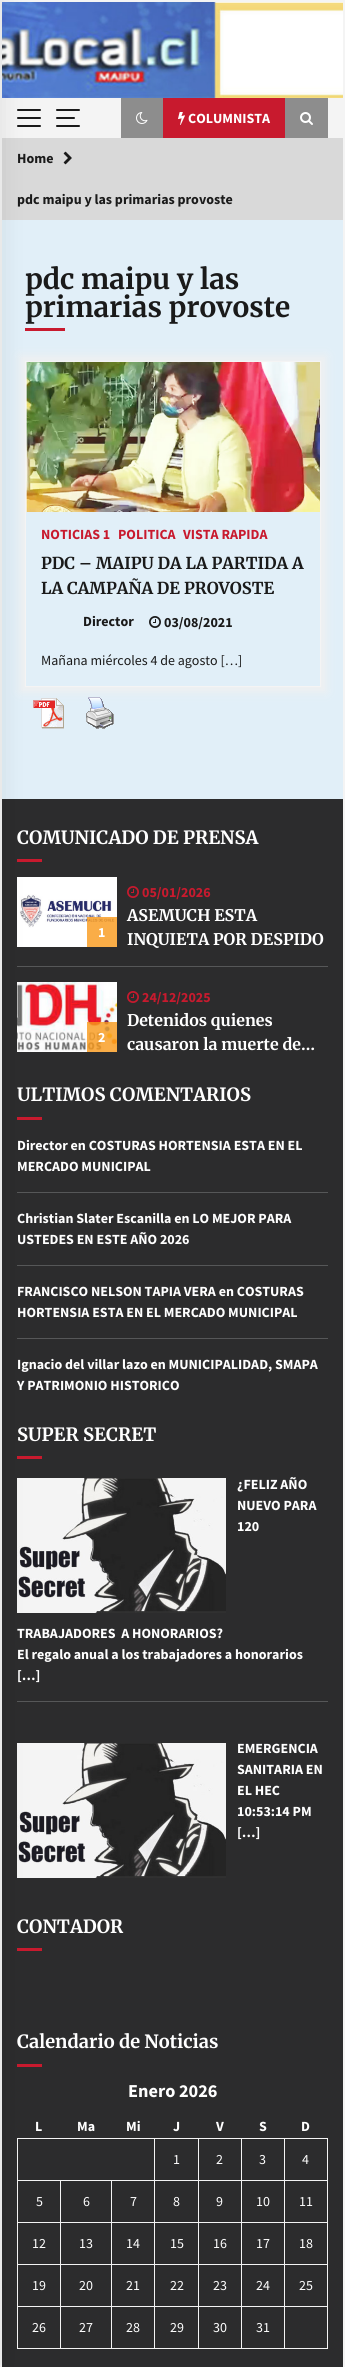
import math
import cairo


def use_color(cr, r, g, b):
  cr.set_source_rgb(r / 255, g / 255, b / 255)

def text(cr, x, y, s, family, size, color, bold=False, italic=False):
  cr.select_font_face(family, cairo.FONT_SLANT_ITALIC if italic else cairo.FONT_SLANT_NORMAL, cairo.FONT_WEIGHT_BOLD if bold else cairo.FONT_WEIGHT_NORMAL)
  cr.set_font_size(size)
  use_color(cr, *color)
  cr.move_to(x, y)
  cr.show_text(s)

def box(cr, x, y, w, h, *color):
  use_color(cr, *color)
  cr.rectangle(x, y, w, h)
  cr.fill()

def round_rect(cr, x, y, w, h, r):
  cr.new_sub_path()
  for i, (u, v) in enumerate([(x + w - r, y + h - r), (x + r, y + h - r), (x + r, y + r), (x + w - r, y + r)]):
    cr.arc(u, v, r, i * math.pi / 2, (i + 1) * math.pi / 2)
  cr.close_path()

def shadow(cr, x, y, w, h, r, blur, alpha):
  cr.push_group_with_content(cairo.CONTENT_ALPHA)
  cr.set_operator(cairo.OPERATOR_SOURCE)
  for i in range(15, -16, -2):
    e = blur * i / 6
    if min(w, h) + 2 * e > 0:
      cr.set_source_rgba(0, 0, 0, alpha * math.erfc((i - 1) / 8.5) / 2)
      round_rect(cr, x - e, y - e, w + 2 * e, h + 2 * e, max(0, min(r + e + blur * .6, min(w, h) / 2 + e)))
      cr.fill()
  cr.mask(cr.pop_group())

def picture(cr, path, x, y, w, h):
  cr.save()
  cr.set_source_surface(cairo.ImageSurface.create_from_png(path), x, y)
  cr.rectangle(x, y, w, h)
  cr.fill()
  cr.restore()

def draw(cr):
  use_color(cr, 225, 239, 248)
  cr.paint()
  cr.rectangle(1, 1, 343, 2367)
  use_color(cr, 244, 244, 244)
  cr.stroke()
  picture(cr, "img_01.png", 2, 2, 341, 96)
  box(cr, 2, 98, 341, 40, 244, 244, 244)
  use_color(cr, 26, 26, 26)
  round_rect(cr, 17, 109, 24, 2, 1)
  cr.fill()
  round_rect(cr, 17, 125, 24, 2, 1)
  cr.fill()
  round_rect(cr, 17, 117, 24, 2, 1)
  cr.fill()
  box(cr, 2, 138, 341, 82, 217, 217, 217)
  box(cr, 25, 328, 40, 3, 200, 26, 46)
  cr.save()
  cr.set_fill_rule(cairo.FILL_RULE_EVEN_ODD)
  cr.new_path()
  cr.move_to(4, 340)
  cr.line_to(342, 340)
  cr.line_to(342, 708)
  cr.line_to(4, 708)
  cr.close_path()
  cr.move_to(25, 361)
  cr.line_to(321, 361)
  cr.line_to(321, 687)
  cr.line_to(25, 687)
  cr.close_path()
  cr.clip()
  use_color(cr, 240, 240, 240)
  shadow(cr, 20, 356, 306, 336, 0, 5, 1)
  cr.restore()
  cr.rectangle(25.5, 361.5, 295, 325)
  use_color(cr, 244, 244, 244)
  cr.set_line_width(1)
  cr.stroke()
  picture(cr, "img_06.png", 26, 362, 294, 150)
  picture(cr, "img_08.png", 33, 698, 31, 31)
  box(cr, 2, 799, 341, 1568, 44, 44, 45)
  box(cr, 17, 859, 25, 3, 200, 26, 46)
  box(cr, 17, 966, 311, 1, 86, 87, 88)
  picture(cr, "img_10.png", 17, 877, 100, 70)
  picture(cr, "img_12.png", 17, 982, 100, 70)
  box(cr, 17, 1117, 25, 3, 200, 26, 46)
  box(cr, 17, 1192, 311, 1, 86, 87, 88)
  box(cr, 17, 1265, 311, 1, 86, 87, 88)
  box(cr, 17, 1338, 311, 1, 86, 87, 88)
  box(cr, 17, 1456, 25, 3, 200, 26, 46)
  box(cr, 17, 1701, 311, 1, 86, 87, 88)
  picture(cr, "img_13.png", 17, 1478, 209, 135)
  picture(cr, "img_13.png", 17, 1743, 209, 135)
  box(cr, 17, 1948, 25, 3, 200, 26, 46)
  box(cr, 17, 2064, 25, 3, 200, 26, 46)
  box(cr, 327, 2138, 1, 211, 244, 244, 244)
  box(cr, 284, 2138, 44, 1, 244, 244, 244)
  box(cr, 284, 2180, 44, 1, 244, 244, 244)
  box(cr, 284, 2222, 44, 1, 244, 244, 244)
  box(cr, 284, 2264, 44, 1, 244, 244, 244)
  box(cr, 284, 2306, 44, 1, 244, 244, 244)
  box(cr, 17, 2348, 311, 1, 244, 244, 244)
  box(cr, 284, 2306, 1, 43, 244, 244, 244)
  box(cr, 241, 2306, 44, 1, 244, 244, 244)
  box(cr, 284, 2264, 1, 43, 244, 244, 244)
  box(cr, 241, 2264, 44, 1, 244, 244, 244)
  box(cr, 284, 2222, 1, 43, 244, 244, 244)
  box(cr, 241, 2222, 44, 1, 244, 244, 244)
  box(cr, 284, 2180, 1, 43, 244, 244, 244)
  box(cr, 241, 2180, 44, 1, 244, 244, 244)
  box(cr, 284, 2138, 1, 43, 244, 244, 244)
  box(cr, 241, 2138, 44, 1, 244, 244, 244)
  box(cr, 241, 2306, 1, 43, 244, 244, 244)
  box(cr, 198, 2306, 44, 1, 244, 244, 244)
  box(cr, 241, 2264, 1, 43, 244, 244, 244)
  box(cr, 198, 2264, 44, 1, 244, 244, 244)
  box(cr, 241, 2222, 1, 43, 244, 244, 244)
  box(cr, 198, 2222, 44, 1, 244, 244, 244)
  box(cr, 241, 2180, 1, 43, 244, 244, 244)
  box(cr, 198, 2180, 44, 1, 244, 244, 244)
  box(cr, 241, 2138, 1, 43, 244, 244, 244)
  box(cr, 198, 2138, 44, 1, 244, 244, 244)
  box(cr, 198, 2306, 1, 43, 244, 244, 244)
  box(cr, 154, 2306, 45, 1, 244, 244, 244)
  box(cr, 198, 2264, 1, 43, 244, 244, 244)
  box(cr, 154, 2264, 45, 1, 244, 244, 244)
  box(cr, 198, 2222, 1, 43, 244, 244, 244)
  box(cr, 154, 2222, 45, 1, 244, 244, 244)
  box(cr, 198, 2180, 1, 43, 244, 244, 244)
  box(cr, 154, 2180, 45, 1, 244, 244, 244)
  box(cr, 198, 2138, 1, 43, 244, 244, 244)
  box(cr, 154, 2138, 45, 1, 244, 244, 244)
  box(cr, 154, 2306, 1, 43, 244, 244, 244)
  box(cr, 111, 2306, 44, 1, 244, 244, 244)
  box(cr, 154, 2264, 1, 43, 244, 244, 244)
  box(cr, 111, 2264, 44, 1, 244, 244, 244)
  box(cr, 154, 2222, 1, 43, 244, 244, 244)
  box(cr, 111, 2222, 44, 1, 244, 244, 244)
  box(cr, 154, 2180, 1, 43, 244, 244, 244)
  box(cr, 111, 2180, 44, 1, 244, 244, 244)
  box(cr, 154, 2138, 1, 43, 244, 244, 244)
  box(cr, 17, 2138, 138, 1, 244, 244, 244)
  box(cr, 111, 2306, 1, 43, 244, 244, 244)
  box(cr, 60, 2306, 52, 1, 244, 244, 244)
  box(cr, 111, 2264, 1, 43, 244, 244, 244)
  box(cr, 60, 2264, 52, 1, 244, 244, 244)
  box(cr, 111, 2222, 1, 43, 244, 244, 244)
  box(cr, 60, 2222, 52, 1, 244, 244, 244)
  box(cr, 111, 2180, 1, 43, 244, 244, 244)
  box(cr, 60, 2180, 52, 1, 244, 244, 244)
  box(cr, 60, 2306, 1, 43, 244, 244, 244)
  box(cr, 17, 2306, 44, 1, 244, 244, 244)
  box(cr, 60, 2264, 1, 43, 244, 244, 244)
  box(cr, 17, 2264, 44, 1, 244, 244, 244)
  box(cr, 60, 2222, 1, 43, 244, 244, 244)
  box(cr, 17, 2222, 44, 1, 244, 244, 244)
  box(cr, 60, 2180, 1, 43, 244, 244, 244)
  box(cr, 17, 2180, 44, 1, 244, 244, 244)
  box(cr, 17, 2306, 1, 43, 244, 244, 244)
  box(cr, 17, 2264, 1, 43, 244, 244, 244)
  box(cr, 17, 2222, 1, 43, 244, 244, 244)
  box(cr, 17, 2180, 1, 43, 244, 244, 244)
  box(cr, 17, 2138, 1, 43, 244, 244, 244)
  use_color(cr, 0, 0, 0)
  shadow(cr, -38, 0, 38, 2367, 0, 12.5, 0.1)
  use_color(cr, 26, 26, 26)
  round_rect(cr, 56, 109, 24, 2, 1)
  cr.fill()
  round_rect(cr, 56, 125, 24, 2, 1)
  cr.fill()
  round_rect(cr, 56, 117, 19, 2, 1)
  cr.fill()
  box(cr, 121, 98, 42, 40, 141, 141, 141)
  picture(cr, "img_02.png", 136, 112, 12, 12)
  box(cr, 163, 98, 122, 40, 200, 26, 46)
  picture(cr, "img_03.png", 178, 112, 7, 13)
  box(cr, 285, 98, 43, 40, 141, 141, 141)
  picture(cr, "img_04.png", 300, 112, 13, 13)
  picture(cr, "img_05.png", 63, 151, 9, 14)
  picture(cr, "img_07.png", 149, 616, 12, 12)
  picture(cr, "img_09.png", 86, 697, 28, 32)
  cr.set_source_rgba(0.976, 0.596, 0.102, 0.8)
  cr.rectangle(87, 917, 30, 30)
  cr.fill()
  picture(cr, "img_11.png", 127, 886, 12, 12)
  cr.rectangle(87, 1022, 30, 30)
  cr.fill()
  picture(cr, "img_11.png", 127, 991, 12, 12)
  text(cr, 188, 123, "COLUMNISTA", "Source Sans Pro", 14, (255, 255, 255), bold=True)
  text(cr, 17, 163, "Home", "Source Sans Pro", 14, (26, 26, 26), bold=True)
  text(cr, 17, 204, "pdc maipu y las primarias provoste", "Source Sans Pro", 14, (26, 26, 26), bold=True)
  text(cr, 25, 289, "pdc maipu y las", "Merriweather", 28, (26, 26, 26), bold=True)
  text(cr, 25, 317, "primarias provoste", "Merriweather", 28, (26, 26, 26), bold=True)
  text(cr, 41, 539, "NOTICIAS 1", "Source Sans Pro", 14, (200, 26, 46), bold=True)
  text(cr, 118, 539, "POLITICA", "Source Sans Pro", 14, (200, 26, 46), bold=True)
  text(cr, 183, 539, "VISTA RAPIDA", "Source Sans Pro", 14, (200, 26, 46), bold=True)
  text(cr, 41, 569, "PDC – MAIPU DA LA PARTIDA A", "Merriweather", 16.4, (26, 26, 26), bold=True)
  text(cr, 41, 594, "LA CAMPAÑA DE PROVOSTE", "Merriweather", 16.4, (26, 26, 26), bold=True)
  text(cr, 83, 626, "Director", "Source Sans Pro", 14, (26, 26, 26), bold=True)
  text(cr, 164, 627, "03/08/2021", "Source Sans Pro", 14, (26, 26, 26), bold=True)
  text(cr, 41, 665, "Mañana miércoles 4 de agosto […]", "Source Sans Pro", 14, (26, 26, 26))
  text(cr, 17, 844, "COMUNICADO DE PRENSA", "Merriweather", 18.25, (255, 255, 255), bold=True)
  text(cr, 98, 937, "1", "Source Sans Pro", 14, (255, 255, 255), bold=True)
  text(cr, 142, 897, "05/01/2026", "Source Sans Pro", 14, (200, 26, 46), bold=True)
  text(cr, 127, 921, "ASEMUCH ESTA", "Merriweather", 16, (255, 255, 255), bold=True)
  text(cr, 127, 945, "INQUIETA POR DESPIDO", "Merriweather", 16, (255, 255, 255), bold=True)
  text(cr, 98, 1042, "2", "Source Sans Pro", 14, (255, 255, 255), bold=True)
  text(cr, 142, 1002, "24/12/2025", "Source Sans Pro", 14, (200, 26, 46), bold=True)
  text(cr, 127, 1026, "Detenidos quienes", "Merriweather", 16, (255, 255, 255), bold=True)
  text(cr, 127, 1050, "causaron la muerte de…", "Merriweather", 16, (255, 255, 255), bold=True)
  text(cr, 17, 1101, "ULTIMOS COMENTARIOS", "Merriweather", 18.25, (255, 255, 255), bold=True)
  text(cr, 17, 1150, "Director en COSTURAS HORTENSIA ESTA EN EL", "Source Sans Pro", 14, (255, 255, 255), bold=True)
  text(cr, 17, 1171, "MERCADO MUNICIPAL", "Source Sans Pro", 14, (255, 255, 255), bold=True)
  text(cr, 17, 1223, "Christian Slater Escanilla en LO MEJOR PARA", "Source Sans Pro", 14, (255, 255, 255), bold=True)
  text(cr, 17, 1244, "USTEDES EN ESTE AÑO 2026", "Source Sans Pro", 14, (255, 255, 255), bold=True)
  text(cr, 17, 1296, "FRANCISCO NELSON TAPIA VERA en COSTURAS", "Source Sans Pro", 14, (255, 255, 255), bold=True)
  text(cr, 17, 1317, "HORTENSIA ESTA EN EL MERCADO MUNICIPAL", "Source Sans Pro", 14, (255, 255, 255), bold=True)
  text(cr, 17, 1369, "Ignacio del villar lazo en MUNICIPALIDAD, SMAPA", "Source Sans Pro", 14, (255, 255, 255), bold=True)
  text(cr, 17, 1390, "Y PATRIMONIO HISTORICO", "Source Sans Pro", 14, (255, 255, 255), bold=True)
  text(cr, 17, 1441, "SUPER SECRET", "Merriweather", 18.25, (255, 255, 255), bold=True)
  text(cr, 237, 1489, "¿FELIZ AÑO", "Source Sans Pro", 14, (255, 255, 255), bold=True)
  text(cr, 237, 1510, "NUEVO PARA", "Source Sans Pro", 14, (255, 255, 255), bold=True)
  text(cr, 237, 1531, "120", "Source Sans Pro", 14, (255, 255, 255), bold=True)
  text(cr, 17, 1638, "TRABAJADORES  A HONORARIOS?", "Source Sans Pro", 14, (255, 255, 255), bold=True)
  text(cr, 17, 1659, "El regalo anual a los trabajadores a honorarios", "Source Sans Pro", 14, (255, 255, 255), bold=True)
  text(cr, 17, 1680, "[…]", "Source Sans Pro", 14, (255, 255, 255), bold=True)
  text(cr, 237, 1753, "EMERGENCIA", "Source Sans Pro", 14, (255, 255, 255), bold=True)
  text(cr, 237, 1774, "SANITARIA EN", "Source Sans Pro", 14, (255, 255, 255), bold=True)
  text(cr, 237, 1795, "EL HEC", "Source Sans Pro", 14, (255, 255, 255), bold=True)
  text(cr, 237, 1816, "10:53:14 PM", "Source Sans Pro", 14, (255, 255, 255), bold=True)
  text(cr, 237, 1837, "[…]", "Source Sans Pro", 14, (255, 255, 255), bold=True)
  text(cr, 17, 1933, "CONTADOR", "Merriweather", 18.25, (255, 255, 255), bold=True)
  text(cr, 17, 2048, "Calendario de Noticias", "Merriweather", 18.25, (255, 255, 255), bold=True)
  text(cr, 128, 2097, "Enero 2026", "Source Sans Pro", 18.25, (255, 255, 255), bold=True)
  text(cr, 35, 2131, "L", "Source Sans Pro", 14, (255, 255, 255), bold=True)
  text(cr, 77, 2131, "Ma", "Source Sans Pro", 14, (255, 255, 255), bold=True)
  text(cr, 126, 2131, "Mi", "Source Sans Pro", 14, (255, 255, 255), bold=True)
  text(cr, 173, 2131, "J", "Source Sans Pro", 14, (255, 255, 255), bold=True)
  text(cr, 216, 2131, "V", "Source Sans Pro", 14, (255, 255, 255), bold=True)
  text(cr, 259, 2131, "S", "Source Sans Pro", 14, (255, 255, 255), bold=True)
  text(cr, 301, 2131, "D", "Source Sans Pro", 14, (255, 255, 255), bold=True)
  text(cr, 173, 2164, "1", "Source Sans Pro", 14, (255, 255, 255))
  text(cr, 216, 2164, "2", "Source Sans Pro", 14, (255, 255, 255))
  text(cr, 259, 2164, "3", "Source Sans Pro", 14, (255, 255, 255))
  text(cr, 302, 2164, "4", "Source Sans Pro", 14, (255, 255, 255))
  text(cr, 36, 2206, "5", "Source Sans Pro", 14, (255, 255, 255))
  text(cr, 83, 2206, "6", "Source Sans Pro", 14, (255, 255, 255))
  text(cr, 130, 2206, "7", "Source Sans Pro", 14, (255, 255, 255))
  text(cr, 173, 2206, "8", "Source Sans Pro", 14, (255, 255, 255))
  text(cr, 216, 2206, "9", "Source Sans Pro", 14, (255, 255, 255))
  text(cr, 256, 2206, "10", "Source Sans Pro", 14, (255, 255, 255))
  text(cr, 299, 2206, "11", "Source Sans Pro", 14, (255, 255, 255))
  text(cr, 32, 2248, "12", "Source Sans Pro", 14, (255, 255, 255))
  text(cr, 79, 2248, "13", "Source Sans Pro", 14, (255, 255, 255))
  text(cr, 126, 2248, "14", "Source Sans Pro", 14, (255, 255, 255))
  text(cr, 170, 2248, "15", "Source Sans Pro", 14, (255, 255, 255))
  text(cr, 213, 2248, "16", "Source Sans Pro", 14, (255, 255, 255))
  text(cr, 256, 2248, "17", "Source Sans Pro", 14, (255, 255, 255))
  text(cr, 299, 2248, "18", "Source Sans Pro", 14, (255, 255, 255))
  text(cr, 32, 2290, "19", "Source Sans Pro", 14, (255, 255, 255))
  text(cr, 79, 2290, "20", "Source Sans Pro", 14, (255, 255, 255))
  text(cr, 126, 2290, "21", "Source Sans Pro", 14, (255, 255, 255))
  text(cr, 170, 2290, "22", "Source Sans Pro", 14, (255, 255, 255))
  text(cr, 213, 2290, "23", "Source Sans Pro", 14, (255, 255, 255))
  text(cr, 256, 2290, "24", "Source Sans Pro", 14, (255, 255, 255))
  text(cr, 299, 2290, "25", "Source Sans Pro", 14, (255, 255, 255))
  text(cr, 32, 2332, "26", "Source Sans Pro", 14, (255, 255, 255))
  text(cr, 79, 2332, "27", "Source Sans Pro", 14, (255, 255, 255))
  text(cr, 126, 2332, "28", "Source Sans Pro", 14, (255, 255, 255))
  text(cr, 170, 2332, "29", "Source Sans Pro", 14, (255, 255, 255))
  text(cr, 213, 2332, "30", "Source Sans Pro", 14, (255, 255, 255))
  text(cr, 256, 2332, "31", "Source Sans Pro", 14, (255, 255, 255))


surface = cairo.ImageSurface(cairo.FORMAT_RGB24, 345, 2367)
cr = cairo.Context(surface)
options = cairo.FontOptions()
options.set_hint_metrics(cairo.HINT_METRICS_OFF)
options.set_hint_style(cairo.HINT_STYLE_NONE)
cr.set_font_options(options)
cr.set_miter_limit(4)
draw(cr)
surface.write_to_png("out.png")
